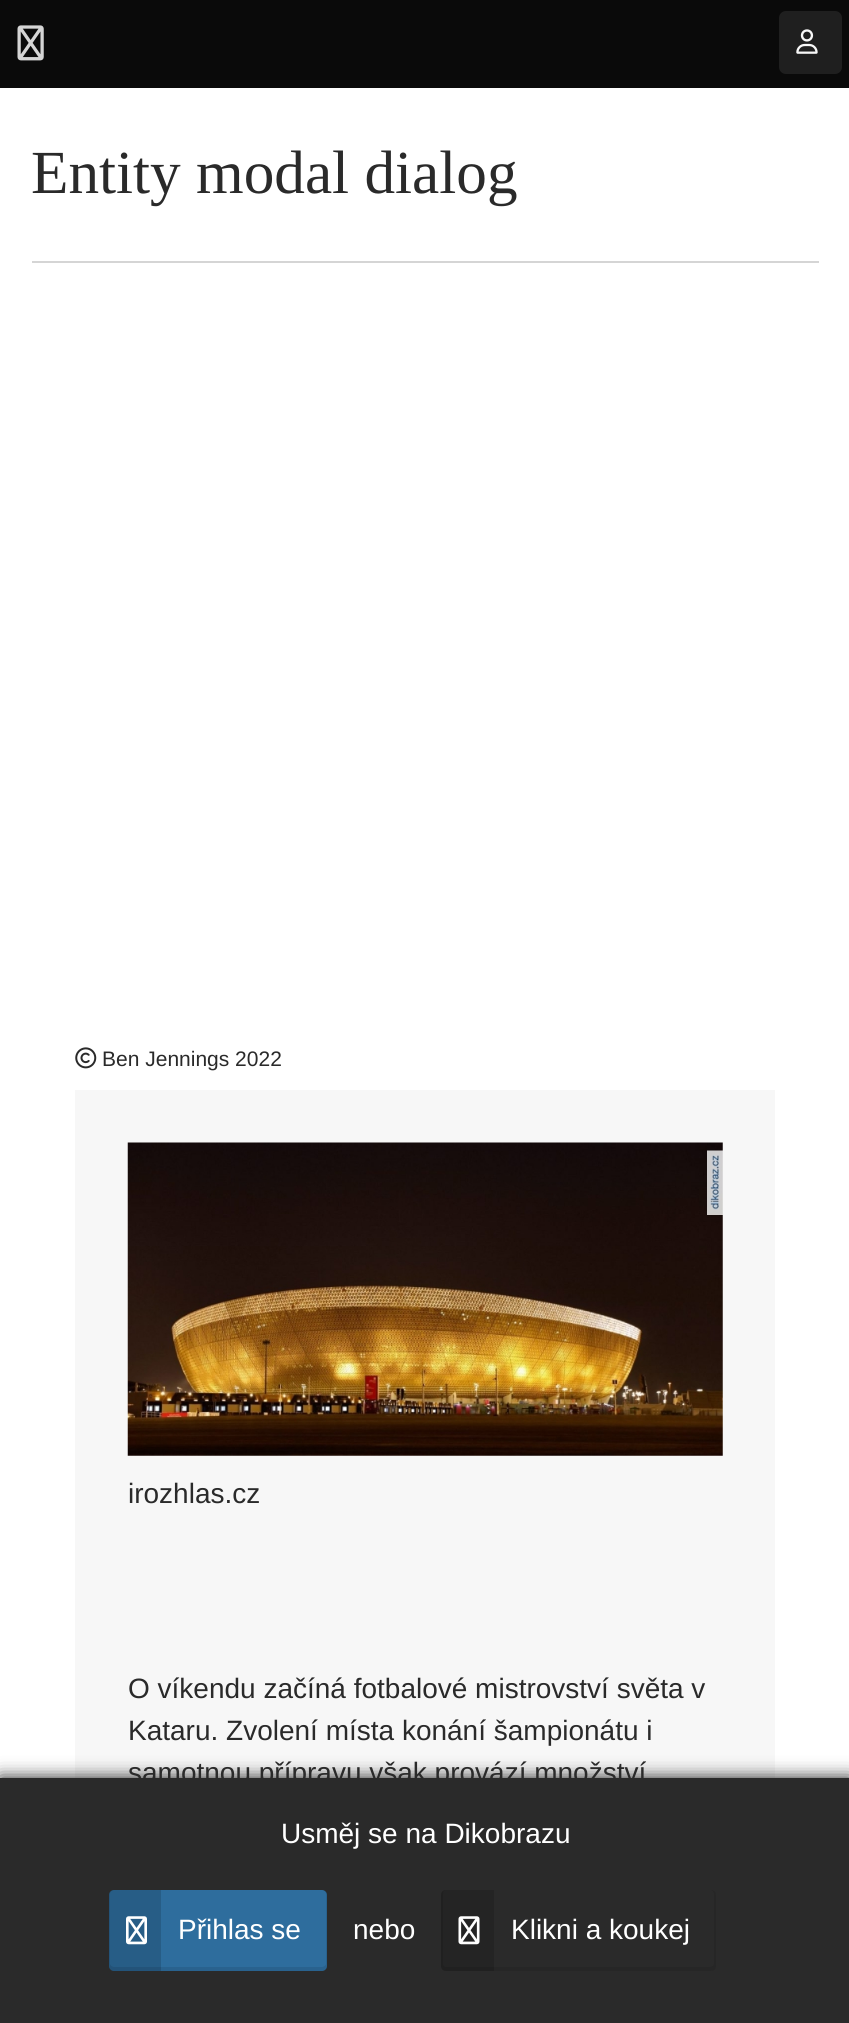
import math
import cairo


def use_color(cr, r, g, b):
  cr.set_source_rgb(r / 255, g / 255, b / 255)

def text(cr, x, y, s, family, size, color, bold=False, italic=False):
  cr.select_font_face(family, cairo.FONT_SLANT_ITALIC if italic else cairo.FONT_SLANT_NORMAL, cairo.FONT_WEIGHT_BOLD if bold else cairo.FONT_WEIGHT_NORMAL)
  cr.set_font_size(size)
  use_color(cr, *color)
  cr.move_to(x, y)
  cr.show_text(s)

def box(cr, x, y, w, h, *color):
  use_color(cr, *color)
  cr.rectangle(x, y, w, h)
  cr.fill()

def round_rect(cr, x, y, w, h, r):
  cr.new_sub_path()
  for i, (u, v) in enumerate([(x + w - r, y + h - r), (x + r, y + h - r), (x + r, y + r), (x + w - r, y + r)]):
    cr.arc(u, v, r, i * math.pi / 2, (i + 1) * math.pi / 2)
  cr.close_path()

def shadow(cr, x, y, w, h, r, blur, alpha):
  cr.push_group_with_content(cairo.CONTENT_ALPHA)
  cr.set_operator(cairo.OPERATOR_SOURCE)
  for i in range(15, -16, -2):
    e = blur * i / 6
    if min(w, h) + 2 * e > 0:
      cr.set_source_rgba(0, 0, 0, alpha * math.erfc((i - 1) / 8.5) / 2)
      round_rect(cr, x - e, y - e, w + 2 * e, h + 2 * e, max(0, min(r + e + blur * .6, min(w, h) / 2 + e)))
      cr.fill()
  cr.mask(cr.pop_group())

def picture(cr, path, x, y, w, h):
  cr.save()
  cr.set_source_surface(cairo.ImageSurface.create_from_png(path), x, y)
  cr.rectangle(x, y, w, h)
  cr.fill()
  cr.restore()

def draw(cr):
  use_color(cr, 255, 255, 255)
  cr.paint()
  box(cr, 0, 0, 849, 88, 10, 10, 10)
  picture(cr, "img_01.png", 17, 25, 27, 36)
  use_color(cr, 31, 31, 31)
  round_rect(cr, 779, 11, 63, 63, 7)
  cr.fill()
  picture(cr, "img_02.png", 796, 29, 22, 25)
  box(cr, 32, 261, 787, 2, 213, 213, 213)
  picture(cr, "img_03.png", 75, 1047, 22, 22)
  box(cr, 75, 1090, 700, 688, 247, 247, 247)
  picture(cr, "img_04.png", 127, 1142, 596, 314)
  use_color(cr, 31, 31, 31)
  shadow(cr, 0, 1778, 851, 245, 0, 9, 1)
  box(cr, 0, 1778, 849, 245, 42, 42, 42)
  use_color(cr, 46, 109, 157)
  round_rect(cr, 109, 1890, 218, 81, 5)
  cr.fill()
  cr.set_source_rgba(0, 0, 0, 0.1)
  cr.new_path()
  cr.move_to(114, 1890)
  cr.curve_to(111, 1890, 109, 1892, 109, 1895)
  cr.line_to(109, 1966)
  cr.curve_to(109, 1969, 111, 1971, 114, 1971)
  cr.line_to(322, 1971)
  cr.curve_to(325, 1971, 327, 1969, 327, 1966)
  cr.line_to(327, 1895)
  cr.curve_to(327, 1892, 325, 1890, 322, 1890)
  cr.curve_to(324, 1890, 326, 1892, 326, 1894)
  cr.line_to(326, 1964)
  cr.curve_to(326, 1965, 324, 1967, 322, 1967)
  cr.line_to(114, 1967)
  cr.curve_to(112, 1967, 110, 1965, 110, 1964)
  cr.line_to(110, 1894)
  cr.curve_to(110, 1892, 112, 1890, 114, 1890)
  cr.close_path()
  cr.fill()
  cr.set_source_rgba(0, 0, 0, 0.15)
  cr.new_path()
  cr.move_to(114, 1890)
  cr.line_to(161, 1890)
  cr.line_to(161, 1971)
  cr.line_to(114, 1971)
  cr.curve_to(111, 1971, 109, 1969, 109, 1966)
  cr.line_to(109, 1895)
  cr.curve_to(109, 1892, 111, 1890, 114, 1890)
  cr.close_path()
  cr.fill()
  picture(cr, "img_05.png", 126, 1916, 21, 29)
  use_color(cr, 38, 38, 38)
  cr.new_path()
  cr.move_to(446, 1890)
  cr.curve_to(443, 1890, 441, 1892, 441, 1895)
  cr.line_to(441, 1966)
  cr.curve_to(441, 1969, 443, 1971, 446, 1971)
  cr.line_to(711, 1971)
  cr.curve_to(714, 1971, 716, 1969, 716, 1966)
  cr.line_to(716, 1895)
  cr.curve_to(716, 1892, 714, 1890, 711, 1890)
  cr.line_to(710, 1890)
  cr.curve_to(712, 1890, 714, 1892, 714, 1894)
  cr.line_to(714, 1964)
  cr.curve_to(714, 1965, 712, 1967, 710, 1967)
  cr.line_to(446, 1967)
  cr.curve_to(444, 1967, 443, 1965, 443, 1964)
  cr.line_to(443, 1894)
  cr.curve_to(443, 1892, 444, 1890, 446, 1890)
  cr.close_path()
  cr.fill()
  cr.set_source_rgba(0, 0, 0, 0.15)
  cr.new_path()
  cr.move_to(446, 1890)
  cr.line_to(494, 1890)
  cr.line_to(494, 1971)
  cr.line_to(446, 1971)
  cr.curve_to(443, 1971, 441, 1969, 441, 1966)
  cr.line_to(441, 1895)
  cr.curve_to(441, 1892, 443, 1890, 446, 1890)
  cr.close_path()
  cr.fill()
  picture(cr, "img_06.png", 458, 1916, 22, 29)
  text(cr, 31, 193, "Entity modal dialog", "Liberation Serif", 61.25, (42, 42, 42))
  text(cr, 102, 1066, "Ben Jennings 2022", "Liberation Sans", 21, (42, 42, 42))
  text(cr, 128, 1503, "irozhlas.cz", "Liberation Sans", 28, (42, 42, 42))
  text(cr, 128, 1698, "O víkendu začíná fotbalové mistrovství světa v", "Liberation Sans", 28, (42, 42, 42))
  text(cr, 128, 1740, "Kataru. Zvolení místa konání šampionátu i", "Liberation Sans", 28, (42, 42, 42))
  text(cr, 128, 1782, "samotnou přípravu však provází množství", "Liberation Sans", 28, (42, 42, 42))
  text(cr, 281, 1843, "Usměj se na Dikobrazu", "Liberation Sans", 28, (255, 255, 255))
  text(cr, 178, 1939, "Přihlas se", "Liberation Sans", 28, (255, 255, 255))
  text(cr, 353, 1939, "nebo", "Liberation Sans", 28, (255, 255, 255))
  text(cr, 511, 1939, "Klikni a koukej", "Liberation Sans", 28, (255, 255, 255))


surface = cairo.ImageSurface(cairo.FORMAT_RGB24, 849, 2023)
cr = cairo.Context(surface)
options = cairo.FontOptions()
options.set_hint_metrics(cairo.HINT_METRICS_OFF)
options.set_hint_style(cairo.HINT_STYLE_NONE)
cr.set_font_options(options)
cr.set_miter_limit(4)
draw(cr)
surface.write_to_png("out.png")
